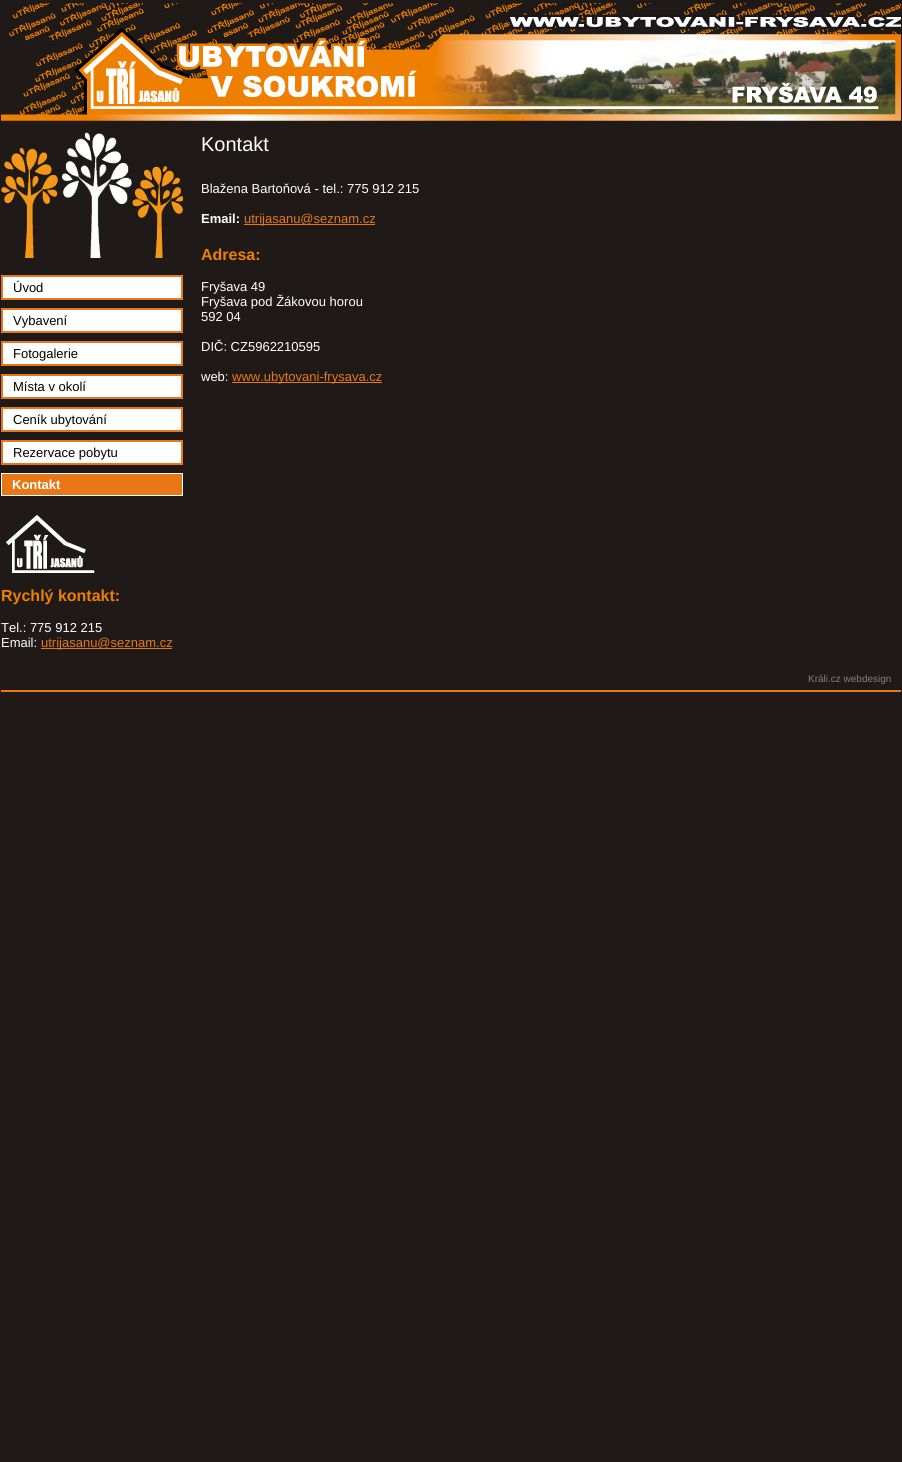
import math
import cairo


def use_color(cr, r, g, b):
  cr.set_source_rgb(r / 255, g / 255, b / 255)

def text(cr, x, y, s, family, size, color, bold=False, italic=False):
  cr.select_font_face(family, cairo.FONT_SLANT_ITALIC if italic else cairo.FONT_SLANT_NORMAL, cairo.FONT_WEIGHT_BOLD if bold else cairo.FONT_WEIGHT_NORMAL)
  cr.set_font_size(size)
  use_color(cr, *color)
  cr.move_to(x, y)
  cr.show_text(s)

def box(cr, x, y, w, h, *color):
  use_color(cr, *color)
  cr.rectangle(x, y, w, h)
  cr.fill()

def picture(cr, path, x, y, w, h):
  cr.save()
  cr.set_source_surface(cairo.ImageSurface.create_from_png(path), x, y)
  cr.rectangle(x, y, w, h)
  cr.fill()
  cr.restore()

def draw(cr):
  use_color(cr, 31, 26, 23)
  cr.paint()
  picture(cr, "img_01.png", 1, 3, 442, 118)
  picture(cr, "img_02.png", 443, 3, 458, 118)
  picture(cr, "img_03.png", 1, 132, 182, 126)
  use_color(cr, 255, 255, 255)
  cr.rectangle(2, 276, 180, 23)
  cr.fill_preserve()
  use_color(cr, 232, 120, 23)
  cr.stroke()
  use_color(cr, 255, 255, 255)
  cr.rectangle(2, 309, 180, 23)
  cr.fill_preserve()
  use_color(cr, 232, 120, 23)
  cr.stroke()
  use_color(cr, 255, 255, 255)
  cr.rectangle(2, 342, 180, 23)
  cr.fill_preserve()
  use_color(cr, 232, 120, 23)
  cr.stroke()
  use_color(cr, 255, 255, 255)
  cr.rectangle(2, 375, 180, 23)
  cr.fill_preserve()
  use_color(cr, 232, 120, 23)
  cr.stroke()
  use_color(cr, 255, 255, 255)
  cr.rectangle(2, 408, 180, 23)
  cr.fill_preserve()
  use_color(cr, 232, 120, 23)
  cr.stroke()
  use_color(cr, 255, 255, 255)
  cr.rectangle(2, 441, 180, 23)
  cr.fill_preserve()
  use_color(cr, 232, 120, 23)
  cr.stroke()
  cr.rectangle(1.5, 473.5, 181, 22)
  cr.fill_preserve()
  use_color(cr, 255, 255, 255)
  cr.set_line_width(1)
  cr.stroke()
  picture(cr, "img_04.png", 6, 515, 89, 58)
  box(cr, 41, 648, 131, 1, 232, 120, 23)
  box(cr, 244, 224, 131, 1, 232, 120, 23)
  box(cr, 232, 382, 150, 1, 232, 120, 23)
  box(cr, 1, 690, 900, 2, 232, 120, 23)
  text(cr, 13, 292, "Úvod", "Liberation Sans", 13, (0, 0, 0))
  text(cr, 13, 325, "Vybavení", "Liberation Sans", 13, (0, 0, 0))
  text(cr, 13, 358, "Fotogalerie", "Liberation Sans", 13, (0, 0, 0))
  text(cr, 13, 391, "Místa v okolí", "Liberation Sans", 13, (0, 0, 0))
  text(cr, 13, 424, "Ceník ubytování", "Liberation Sans", 13, (0, 0, 0))
  text(cr, 13, 457, "Rezervace pobytu", "Liberation Sans", 13, (0, 0, 0))
  text(cr, 12, 489, "Kontakt", "Liberation Sans", 13, (255, 255, 255), bold=True)
  text(cr, 1, 601, "Rychlý kontakt:", "Liberation Sans", 16, (238, 127, 1), bold=True)
  text(cr, 1, 632, "Tel.: 775 912 215", "Liberation Sans", 13, (255, 255, 255))
  text(cr, 1, 647, "Email:", "Liberation Sans", 13, (255, 255, 255))
  text(cr, 41, 647, "utrijasanu@seznam.cz", "Liberation Sans", 13, (232, 120, 23))
  text(cr, 201, 151, "Kontakt", "Liberation Sans", 20, (255, 255, 255))
  text(cr, 201, 193, "Blažena Bartoňová - tel.: 775 912 215", "Liberation Sans", 13, (255, 255, 255))
  text(cr, 201, 223, "Email:", "Liberation Sans", 13, (255, 255, 255), bold=True)
  text(cr, 244, 223, "utrijasanu@seznam.cz", "Liberation Sans", 13, (232, 120, 23))
  text(cr, 201, 260, "Adresa:", "Liberation Sans", 16, (238, 127, 1), bold=True)
  text(cr, 201, 291, "Fryšava 49", "Liberation Sans", 13, (255, 255, 255))
  text(cr, 201, 306, "Fryšava pod Žákovou horou", "Liberation Sans", 13, (255, 255, 255))
  text(cr, 201, 321, "592 04", "Liberation Sans", 13, (255, 255, 255))
  text(cr, 201, 351, "DIČ: CZ5962210595", "Liberation Sans", 13, (255, 255, 255))
  text(cr, 201, 381, "web:", "Liberation Sans", 13, (255, 255, 255))
  text(cr, 232, 381, "www.ubytovani-frysava.cz", "Liberation Sans", 13, (232, 120, 23))
  text(cr, 808, 682, "Králi.cz webdesign", "Liberation Sans", 10, (131, 125, 129))


surface = cairo.ImageSurface(cairo.FORMAT_RGB24, 902, 1462)
cr = cairo.Context(surface)
options = cairo.FontOptions()
options.set_hint_metrics(cairo.HINT_METRICS_OFF)
options.set_hint_style(cairo.HINT_STYLE_NONE)
cr.set_font_options(options)
cr.set_miter_limit(4)
draw(cr)
surface.write_to_png("out.png")
